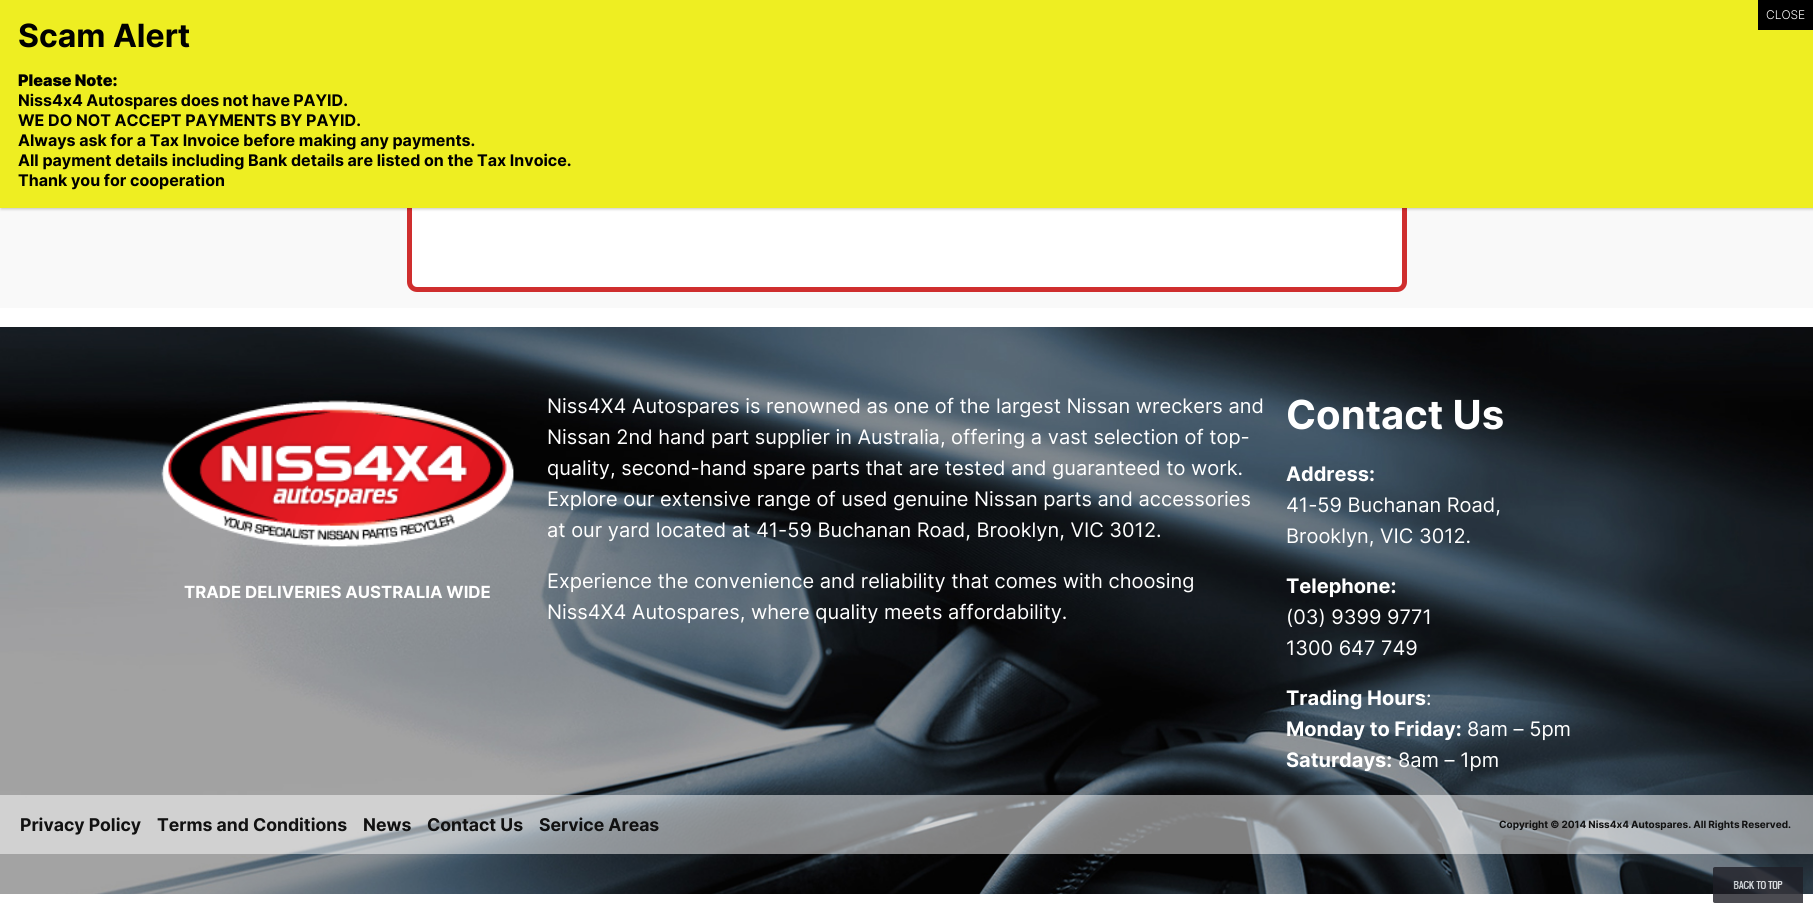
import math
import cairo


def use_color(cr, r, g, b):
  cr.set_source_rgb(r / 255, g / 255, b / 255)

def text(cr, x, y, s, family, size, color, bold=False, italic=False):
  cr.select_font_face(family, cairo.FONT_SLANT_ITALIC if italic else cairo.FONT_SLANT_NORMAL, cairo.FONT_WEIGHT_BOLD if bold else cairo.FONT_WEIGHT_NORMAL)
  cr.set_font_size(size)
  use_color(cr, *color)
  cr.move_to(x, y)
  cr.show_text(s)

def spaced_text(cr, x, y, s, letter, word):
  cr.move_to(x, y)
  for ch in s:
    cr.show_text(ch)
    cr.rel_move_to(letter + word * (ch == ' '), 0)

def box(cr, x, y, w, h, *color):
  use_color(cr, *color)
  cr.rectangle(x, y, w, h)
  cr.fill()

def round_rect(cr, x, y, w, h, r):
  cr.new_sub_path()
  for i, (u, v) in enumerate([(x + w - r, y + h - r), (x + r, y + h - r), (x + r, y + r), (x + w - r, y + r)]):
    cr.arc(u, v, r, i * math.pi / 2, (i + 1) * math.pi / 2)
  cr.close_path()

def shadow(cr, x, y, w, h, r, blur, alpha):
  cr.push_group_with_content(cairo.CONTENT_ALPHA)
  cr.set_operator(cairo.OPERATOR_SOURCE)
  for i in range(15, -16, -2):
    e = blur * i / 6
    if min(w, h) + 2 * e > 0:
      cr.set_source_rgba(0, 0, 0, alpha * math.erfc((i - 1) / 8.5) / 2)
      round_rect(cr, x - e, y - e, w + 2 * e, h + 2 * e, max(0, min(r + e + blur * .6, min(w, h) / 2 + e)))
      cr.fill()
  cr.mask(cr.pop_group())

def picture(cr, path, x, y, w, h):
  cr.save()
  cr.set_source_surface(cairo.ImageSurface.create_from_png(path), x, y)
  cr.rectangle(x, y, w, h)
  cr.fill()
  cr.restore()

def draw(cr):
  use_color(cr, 255, 255, 255)
  cr.paint()
  box(cr, 0, 208, 1813, 100, 249, 249, 249)
  use_color(cr, 255, 255, 255)
  round_rect(cr, 409.5, -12.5, 995, 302, 7.5)
  cr.fill_preserve()
  use_color(cr, 207, 46, 46)
  cr.set_line_width(5)
  cr.stroke()
  use_color(cr, 2, 2, 2)
  shadow(cr, 1, 1, 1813, 208, 0, 1.5, 0.23)
  box(cr, 0, 0, 1813, 208, 238, 238, 34)
  box(cr, 1758, 0, 55, 30, 0, 0, 0)
  picture(cr, "img_01.png", 0, 327, 1813, 567)
  picture(cr, "img_02.png", 161, 400, 353, 147)
  cr.set_source_rgba(1, 1, 1, 0.5)
  cr.rectangle(0, 795, 1813, 59)
  cr.fill()
  picture(cr, "img_03.png", 1713, 867, 90, 36)
  text(cr, 1766, 19, "CLOSE", "Inter Light", 12, (255, 255, 255))
  text(cr, 18, 47, "Scam Alert", "Inter", 32, (0, 0, 0), bold=True)
  text(cr, 18, 86, "Please Note:", "Inter Black", 16, (0, 0, 0))
  cr.select_font_face("Inter", cairo.FONT_SLANT_NORMAL, cairo.FONT_WEIGHT_BOLD)
  spaced_text(cr, 18, 106, "Niss4x4 Autospares does not have PAYID.", 0, -0.5)
  text(cr, 18, 126, "WE DO NOT ACCEPT PAYMENTS BY PAYID.", "Inter", 16, (0, 0, 0), bold=True)
  text(cr, 18, 146, "Always ask for a Tax Invoice before making any payments.", "Inter", 16, (0, 0, 0), bold=True)
  text(cr, 18, 166, "All payment details including Bank details are listed on the Tax Invoice.", "Inter", 16, (0, 0, 0), bold=True)
  text(cr, 18, 186, "Thank you for cooperation", "Inter", 16, (0, 0, 0), bold=True)
  text(cr, 184, 598, "TRADE DELIVERIES AUSTRALIA WIDE", "Inter", 16.75, (255, 255, 255), bold=True)
  text(cr, 547, 413, "Niss4X4 Autospares is renowned as one of the largest Nissan wreckers and", "Inter", 20, (255, 255, 255))
  text(cr, 547, 444, "Nissan 2nd hand part supplier in Australia, offering a vast selection of top-", "Inter", 20, (255, 255, 255))
  text(cr, 547, 475, "quality, second-hand spare parts that are tested and guaranteed to work.", "Inter", 20, (255, 255, 255))
  text(cr, 547, 506, "Explore our extensive range of used genuine Nissan parts and accessories", "Inter", 20, (255, 255, 255))
  text(cr, 547, 537, "at our yard located at 41-59 Buchanan Road, Brooklyn, VIC 3012.", "Inter", 20, (255, 255, 255))
  text(cr, 547, 588, "Experience the convenience and reliability that comes with choosing", "Inter", 20, (255, 255, 255))
  text(cr, 547, 619, "Niss4X4 Autospares, where quality meets affordability.", "Inter", 20, (255, 255, 255))
  text(cr, 1286, 429, "Contact Us", "Inter", 40, (255, 255, 255), bold=True)
  text(cr, 1286, 481, "Address:", "Inter", 20, (255, 255, 255), bold=True)
  text(cr, 1286, 512, "41-59 Buchanan Road,", "Inter", 20, (255, 255, 255))
  text(cr, 1286, 543, "Brooklyn, VIC 3012.", "Inter", 20, (255, 255, 255))
  text(cr, 1286, 593, "Telephone:", "Inter", 20, (255, 255, 255), bold=True)
  text(cr, 1286, 624, "(03) 9399 9771", "Inter", 20, (255, 255, 255))
  text(cr, 1286, 655, "1300 647 749", "Inter", 20, (255, 255, 255))
  text(cr, 1286, 705, "Trading Hours", "Inter", 20, (255, 255, 255), bold=True)
  text(cr, 1426, 705, ":", "Inter", 20, (255, 255, 255))
  text(cr, 1286, 736, "Monday to Friday:", "Inter", 20, (255, 255, 255), bold=True)
  text(cr, 1467, 736, "8am – 5pm", "Inter", 20, (255, 255, 255))
  text(cr, 1286, 767, "Saturdays:", "Inter", 20, (255, 255, 255), bold=True)
  text(cr, 1398, 767, "8am – 1pm", "Inter", 20, (255, 255, 255))
  text(cr, 20, 831, "Privacy Policy", "Inter", 17.6, (17, 17, 17), bold=True)
  text(cr, 157, 831, "Terms and Conditions", "Inter", 17.6, (17, 17, 17), bold=True)
  text(cr, 363, 831, "News", "Inter", 17.6, (17, 17, 17), bold=True)
  text(cr, 427, 831, "Contact Us", "Inter", 17.6, (17, 17, 17), bold=True)
  text(cr, 539, 831, "Service Areas", "Inter", 17.6, (17, 17, 17), bold=True)
  cr.set_font_size(10)
  spaced_text(cr, 1499, 828, "Copyright © 2014 Niss4x4 Autospares. All Rights Reserved.", 0, -0.25)


surface = cairo.ImageSurface(cairo.FORMAT_RGB24, 1813, 915)
cr = cairo.Context(surface)
options = cairo.FontOptions()
options.set_hint_metrics(cairo.HINT_METRICS_OFF)
options.set_hint_style(cairo.HINT_STYLE_NONE)
cr.set_font_options(options)
cr.set_miter_limit(4)
draw(cr)
surface.write_to_png("out.png")
